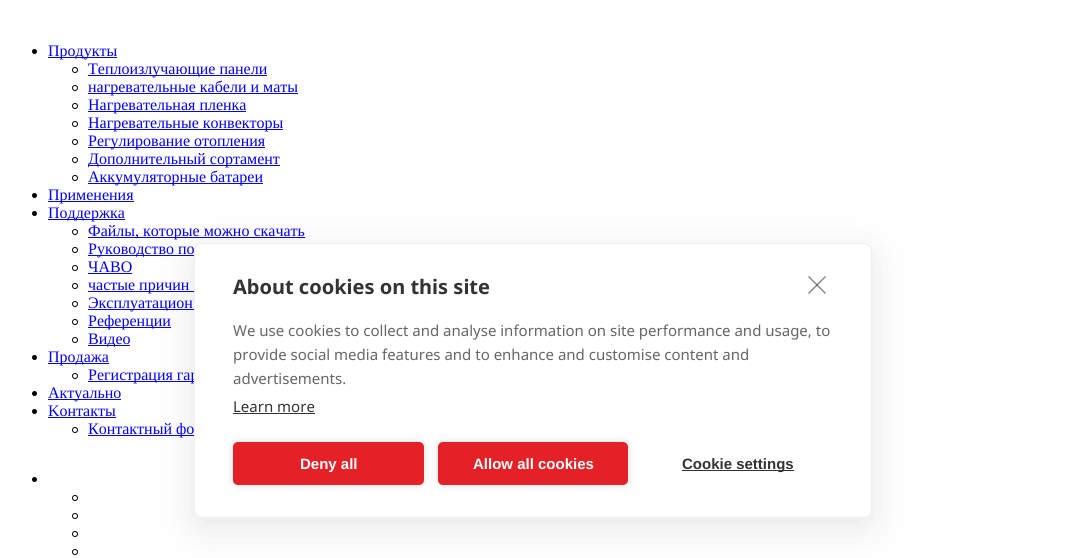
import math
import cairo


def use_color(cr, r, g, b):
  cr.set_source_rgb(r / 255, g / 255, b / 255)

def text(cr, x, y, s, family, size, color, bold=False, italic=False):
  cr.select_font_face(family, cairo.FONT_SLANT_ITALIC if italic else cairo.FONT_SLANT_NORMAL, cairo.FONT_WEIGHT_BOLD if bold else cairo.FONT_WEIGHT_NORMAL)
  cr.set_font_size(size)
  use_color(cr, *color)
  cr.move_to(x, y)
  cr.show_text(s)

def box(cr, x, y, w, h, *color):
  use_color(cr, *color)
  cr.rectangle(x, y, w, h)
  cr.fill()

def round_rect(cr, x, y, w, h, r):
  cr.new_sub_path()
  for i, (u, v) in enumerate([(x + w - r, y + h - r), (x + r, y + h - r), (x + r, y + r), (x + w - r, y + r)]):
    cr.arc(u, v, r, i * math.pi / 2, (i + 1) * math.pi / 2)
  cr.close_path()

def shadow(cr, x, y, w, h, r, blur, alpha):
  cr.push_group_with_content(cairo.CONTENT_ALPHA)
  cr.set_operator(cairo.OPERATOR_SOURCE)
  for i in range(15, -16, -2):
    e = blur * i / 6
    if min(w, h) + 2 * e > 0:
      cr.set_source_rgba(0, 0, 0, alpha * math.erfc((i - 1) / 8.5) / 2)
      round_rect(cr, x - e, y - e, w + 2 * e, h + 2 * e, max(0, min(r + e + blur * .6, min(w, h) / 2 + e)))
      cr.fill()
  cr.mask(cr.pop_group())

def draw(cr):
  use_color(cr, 255, 255, 255)
  cr.paint()
  use_color(cr, 0, 0, 0)
  cr.arc(34.5, 51.5, 2.5, 0, 2 * math.pi)
  cr.fill()
  box(cr, 48, 57, 69, 1, 0, 0, 238)
  cr.arc(75, 70, 2.5, 0, 2 * math.pi)
  use_color(cr, 0, 0, 0)
  cr.set_line_width(1)
  cr.stroke()
  box(cr, 88, 75, 179, 1, 0, 0, 238)
  cr.arc(75, 88, 2.5, 0, 2 * math.pi)
  use_color(cr, 0, 0, 0)
  cr.stroke()
  box(cr, 88, 93, 210, 1, 0, 0, 238)
  cr.arc(75, 106, 2.5, 0, 2 * math.pi)
  use_color(cr, 0, 0, 0)
  cr.stroke()
  box(cr, 88, 111, 158, 1, 0, 0, 238)
  cr.arc(75, 124, 2.5, 0, 2 * math.pi)
  use_color(cr, 0, 0, 0)
  cr.stroke()
  box(cr, 88, 129, 195, 1, 0, 0, 238)
  cr.arc(75, 142, 2.5, 0, 2 * math.pi)
  use_color(cr, 0, 0, 0)
  cr.stroke()
  box(cr, 88, 147, 177, 1, 0, 0, 238)
  cr.arc(75, 160, 2.5, 0, 2 * math.pi)
  use_color(cr, 0, 0, 0)
  cr.stroke()
  box(cr, 88, 165, 192, 1, 0, 0, 238)
  cr.arc(75, 178, 2.5, 0, 2 * math.pi)
  use_color(cr, 0, 0, 0)
  cr.stroke()
  box(cr, 88, 183, 175, 1, 0, 0, 238)
  use_color(cr, 0, 0, 0)
  cr.arc(34.5, 195.5, 2.5, 0, 2 * math.pi)
  cr.fill()
  box(cr, 48, 201, 86, 1, 0, 0, 238)
  use_color(cr, 0, 0, 0)
  cr.arc(34.5, 213.5, 2.5, 0, 2 * math.pi)
  cr.fill()
  box(cr, 48, 219, 77, 1, 0, 0, 238)
  cr.arc(75, 232, 2.5, 0, 2 * math.pi)
  use_color(cr, 0, 0, 0)
  cr.stroke()
  box(cr, 88, 237, 217, 1, 0, 0, 238)
  cr.arc(75, 250, 2.5, 0, 2 * math.pi)
  use_color(cr, 0, 0, 0)
  cr.stroke()
  box(cr, 88, 255, 106, 1, 0, 0, 238)
  cr.arc(75, 268, 2.5, 0, 2 * math.pi)
  use_color(cr, 0, 0, 0)
  cr.stroke()
  box(cr, 88, 273, 44, 1, 0, 0, 238)
  cr.arc(75, 286, 2.5, 0, 2 * math.pi)
  use_color(cr, 0, 0, 0)
  cr.stroke()
  box(cr, 88, 291, 106, 1, 0, 0, 238)
  cr.arc(75, 304, 2.5, 0, 2 * math.pi)
  use_color(cr, 0, 0, 0)
  cr.stroke()
  box(cr, 88, 309, 106, 1, 0, 0, 238)
  cr.arc(75, 322, 2.5, 0, 2 * math.pi)
  use_color(cr, 0, 0, 0)
  cr.stroke()
  box(cr, 88, 327, 83, 1, 0, 0, 238)
  cr.arc(75, 340, 2.5, 0, 2 * math.pi)
  use_color(cr, 0, 0, 0)
  cr.stroke()
  box(cr, 88, 345, 42, 1, 0, 0, 238)
  use_color(cr, 0, 0, 0)
  cr.arc(34.5, 357.5, 2.5, 0, 2 * math.pi)
  cr.fill()
  box(cr, 48, 363, 61, 1, 0, 0, 238)
  cr.arc(75, 376, 2.5, 0, 2 * math.pi)
  use_color(cr, 0, 0, 0)
  cr.stroke()
  box(cr, 88, 381, 106, 1, 0, 0, 238)
  use_color(cr, 0, 0, 0)
  cr.arc(34.5, 393.5, 2.5, 0, 2 * math.pi)
  cr.fill()
  box(cr, 48, 399, 73, 1, 0, 0, 238)
  use_color(cr, 0, 0, 0)
  cr.arc(34.5, 411.5, 2.5, 0, 2 * math.pi)
  cr.fill()
  box(cr, 48, 417, 68, 1, 0, 0, 238)
  cr.arc(75, 430, 2.5, 0, 2 * math.pi)
  use_color(cr, 0, 0, 0)
  cr.stroke()
  box(cr, 88, 435, 106, 1, 0, 0, 238)
  use_color(cr, 0, 0, 0)
  cr.arc(34.5, 479.5, 2.5, 0, 2 * math.pi)
  cr.fill()
  cr.arc(75, 498, 2.5, 0, 2 * math.pi)
  cr.stroke()
  cr.arc(75, 516, 2.5, 0, 2 * math.pi)
  cr.stroke()
  cr.arc(75, 534, 2.5, 0, 2 * math.pi)
  cr.stroke()
  cr.arc(75, 552, 2.5, 0, 2 * math.pi)
  cr.stroke()
  use_color(cr, 0, 0, 0)
  shadow(cr, 194, 253, 678, 275, 8, 20, 0.1)
  text(cr, 48, 56, "Продукты", "Liberation Serif", 16, (0, 0, 238))
  text(cr, 88, 74, "Теплоизлучающие панели", "Liberation Serif", 16, (0, 0, 238))
  text(cr, 88, 92, "нагревательные кабели и маты", "Liberation Serif", 16, (0, 0, 238))
  text(cr, 88, 110, "Нагревательная пленка", "Liberation Serif", 16, (0, 0, 238))
  text(cr, 88, 128, "Нагревательные конвекторы", "Liberation Serif", 16, (0, 0, 238))
  text(cr, 88, 146, "Регулирование отопления", "Liberation Serif", 16, (0, 0, 238))
  text(cr, 88, 164, "Дополнительный сортамент", "Liberation Serif", 16, (0, 0, 238))
  text(cr, 88, 182, "Аккумуляторные батареи", "Liberation Serif", 16, (0, 0, 238))
  text(cr, 48, 200, "Применения", "Liberation Serif", 16, (0, 0, 238))
  text(cr, 48, 218, "Поддержкa", "Liberation Serif", 16, (0, 0, 238))
  text(cr, 88, 236, "Файлы, которые можно скачать", "Liberation Serif", 16, (0, 0, 238))
  text(cr, 88, 254, "Руководство по", "Liberation Serif", 16, (0, 0, 238))
  text(cr, 88, 272, "ЧАВО", "Liberation Serif", 16, (0, 0, 238))
  text(cr, 88, 290, "частые причин", "Liberation Serif", 16, (0, 0, 238))
  text(cr, 88, 308, "Эксплуатацион", "Liberation Serif", 16, (0, 0, 238))
  text(cr, 88, 326, "Pеференции", "Liberation Serif", 16, (0, 0, 238))
  text(cr, 88, 344, "Видео", "Liberation Serif", 16, (0, 0, 238))
  text(cr, 48, 362, "Продажа", "Liberation Serif", 16, (0, 0, 238))
  text(cr, 88, 380, "Регистрация гар", "Liberation Serif", 16, (0, 0, 238))
  text(cr, 48, 398, "Aктуально", "Liberation Serif", 16, (0, 0, 238))
  text(cr, 48, 416, "Kонтакты", "Liberation Serif", 16, (0, 0, 238))
  text(cr, 88, 434, "Контактный фо", "Liberation Serif", 16, (0, 0, 238))
  use_color(cr, 255, 255, 255)
  round_rect(cr, 194.5, 243.5, 677, 274, 7.5)
  cr.fill_preserve()
  use_color(cr, 238, 238, 238)
  cr.stroke()
  use_color(cr, 133, 133, 133)
  cr.new_path()
  cr.move_to(808, 293)
  cr.line_to(825, 276)
  cr.line_to(826, 277)
  cr.line_to(809, 294)
  cr.close_path()
  cr.fill()
  cr.set_source_rgba(0.2, 0.2, 0.2, 0.6)
  cr.new_path()
  cr.move_to(809, 276)
  cr.line_to(826, 293)
  cr.line_to(825, 294)
  cr.line_to(808, 277)
  cr.close_path()
  cr.fill()
  text(cr, 233, 294, "About cookies on this site", "Noto Sans", 20, (51, 51, 51), bold=True)
  text(cr, 233, 336, "We use cookies to collect and analyse information on site performance and usage, to", "Noto Sans", 15, (102, 102, 102))
  text(cr, 233, 360, "provide social media features and to enhance and customise content and", "Noto Sans", 15, (102, 102, 102))
  text(cr, 233, 384, "advertisements.", "Noto Sans", 15, (102, 102, 102))
  text(cr, 233, 412, "Learn more", "Noto Sans", 15, (51, 51, 51))
  box(cr, 233, 413, 82, 1, 51, 51, 51)
  use_color(cr, 0, 0, 0)
  shadow(cr, 233, 442, 191, 43, 5, 5, 0.12)
  use_color(cr, 228, 33, 39)
  round_rect(cr, 233, 442, 191, 43, 5)
  cr.fill()
  text(cr, 300, 469, "Deny all", "Liberation Sans", 15, (255, 255, 255), bold=True)
  use_color(cr, 0, 0, 0)
  shadow(cr, 438, 442, 190, 43, 5, 5, 0.12)
  use_color(cr, 228, 33, 39)
  round_rect(cr, 438, 442, 190, 43, 5)
  cr.fill()
  text(cr, 473, 469, "Allow all cookies", "Liberation Sans", 15, (255, 255, 255), bold=True)
  box(cr, 682, 470, 112, 1, 51, 51, 51)
  text(cr, 682, 469, "Cookie settings", "Liberation Sans", 15, (51, 51, 51), bold=True)


surface = cairo.ImageSurface(cairo.FORMAT_RGB24, 1066, 558)
cr = cairo.Context(surface)
options = cairo.FontOptions()
options.set_hint_metrics(cairo.HINT_METRICS_OFF)
options.set_hint_style(cairo.HINT_STYLE_NONE)
cr.set_font_options(options)
cr.set_miter_limit(4)
draw(cr)
surface.write_to_png("out.png")
